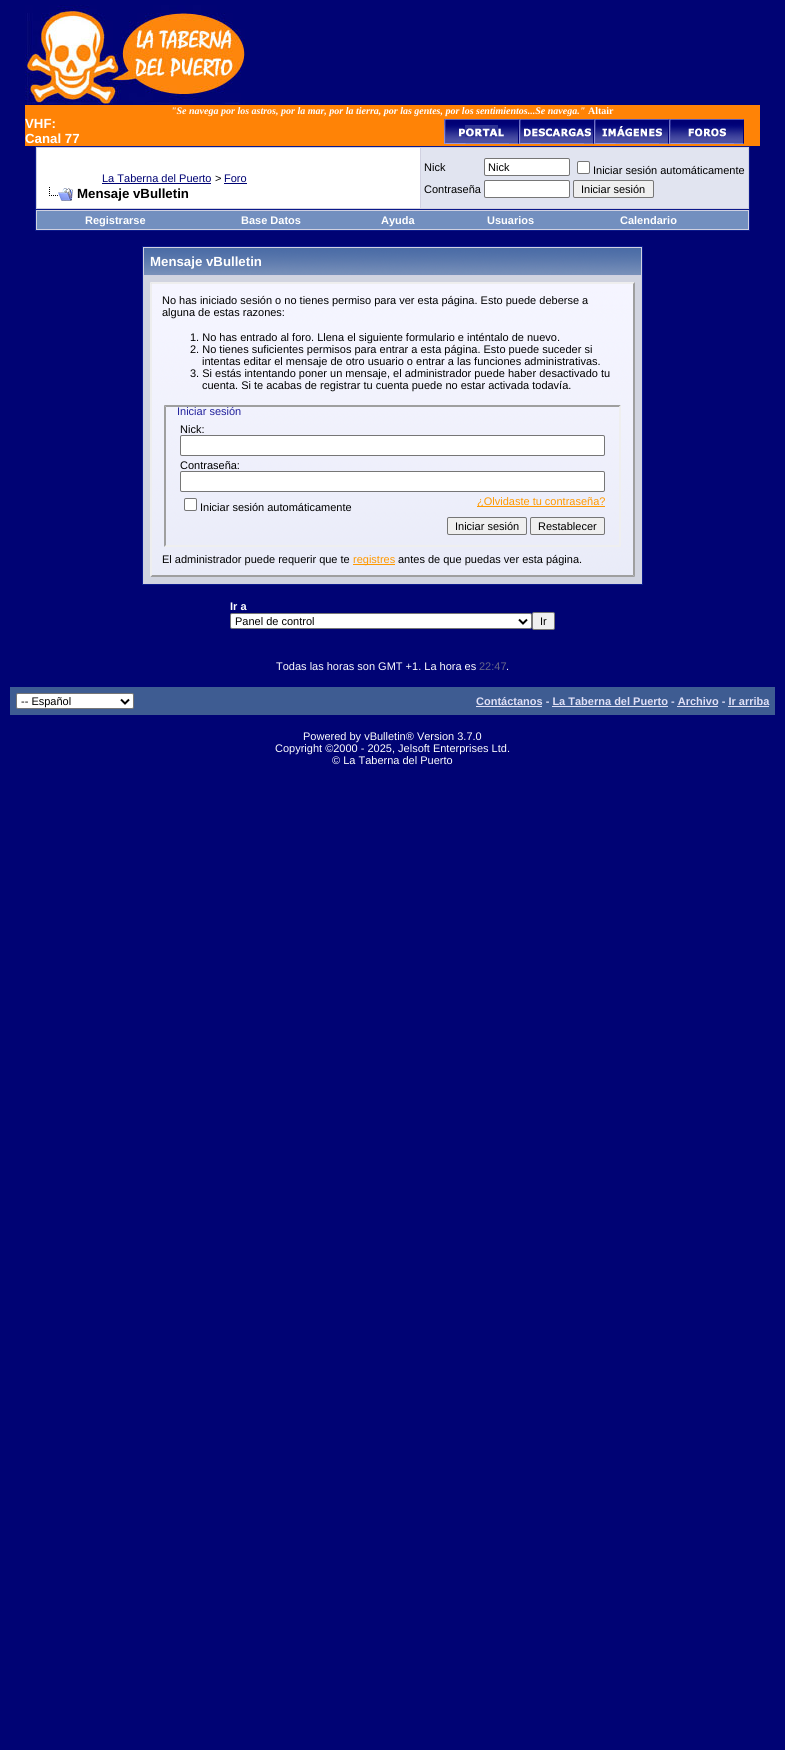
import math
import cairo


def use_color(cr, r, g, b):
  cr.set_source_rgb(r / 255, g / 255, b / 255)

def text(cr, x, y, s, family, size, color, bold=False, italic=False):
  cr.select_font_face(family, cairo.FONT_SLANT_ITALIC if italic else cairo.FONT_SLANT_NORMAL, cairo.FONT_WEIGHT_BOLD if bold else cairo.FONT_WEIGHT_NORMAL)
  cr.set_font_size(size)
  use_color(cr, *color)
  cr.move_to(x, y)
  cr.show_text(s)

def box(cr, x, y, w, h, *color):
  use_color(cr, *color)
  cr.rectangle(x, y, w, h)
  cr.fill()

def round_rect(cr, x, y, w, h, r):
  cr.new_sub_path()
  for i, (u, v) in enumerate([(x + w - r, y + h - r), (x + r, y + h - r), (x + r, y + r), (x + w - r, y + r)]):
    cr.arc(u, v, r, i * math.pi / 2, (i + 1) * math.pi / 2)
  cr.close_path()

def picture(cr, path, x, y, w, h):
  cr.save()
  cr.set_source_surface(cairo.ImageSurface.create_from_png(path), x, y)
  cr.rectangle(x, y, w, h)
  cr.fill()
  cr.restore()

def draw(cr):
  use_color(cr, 0, 3, 116)
  cr.paint()
  picture(cr, "img_01.png", 25, 5, 220, 100)
  box(cr, 25, 105, 735, 41, 255, 131, 6)
  picture(cr, "img_02.png", 444, 119, 75, 25)
  picture(cr, "img_03.png", 519, 119, 75, 25)
  picture(cr, "img_04.png", 594, 119, 75, 25)
  picture(cr, "img_05.png", 669, 119, 75, 25)
  use_color(cr, 209, 209, 225)
  cr.rectangle(35.5, 146.5, 714, 63)
  cr.fill_preserve()
  use_color(cr, 11, 25, 140)
  cr.set_line_width(1)
  cr.stroke()
  box(cr, 37, 148, 383, 60, 255, 255, 255)
  box(cr, 102, 183, 109, 1, 0, 3, 116)
  box(cr, 224, 183, 23, 1, 0, 3, 116)
  picture(cr, "img_06.png", 49, 187, 24, 14)
  box(cr, 421, 148, 327, 60, 225, 228, 240)
  use_color(cr, 255, 255, 255)
  round_rect(cr, 484.5, 158.5, 85, 17, 1.5)
  cr.fill_preserve()
  use_color(cr, 118, 118, 118)
  cr.stroke()
  use_color(cr, 255, 255, 255)
  round_rect(cr, 577.5, 161.5, 12, 12, 1.5)
  cr.fill_preserve()
  use_color(cr, 118, 118, 118)
  cr.stroke()
  use_color(cr, 255, 255, 255)
  round_rect(cr, 484.5, 180.5, 85, 17, 1.5)
  cr.fill_preserve()
  use_color(cr, 118, 118, 118)
  cr.stroke()
  use_color(cr, 239, 239, 239)
  round_rect(cr, 573.5, 180.5, 80, 17, 1.5)
  cr.fill_preserve()
  use_color(cr, 118, 118, 118)
  cr.stroke()
  box(cr, 36, 210, 713, 20, 209, 209, 225)
  box(cr, 749, 210, 1, 21, 11, 25, 140)
  box(cr, 35, 230, 715, 1, 11, 25, 140)
  box(cr, 35, 210, 1, 21, 11, 25, 140)
  box(cr, 37, 211, 711, 18, 115, 143, 191)
  use_color(cr, 209, 209, 225)
  cr.rectangle(142.5, 246.5, 500, 338)
  cr.fill_preserve()
  use_color(cr, 11, 25, 140)
  cr.stroke()
  picture(cr, "img_07.png", 144, 248, 497, 27)
  box(cr, 144, 276, 497, 307, 209, 212, 224)
  picture(cr, "img_08.png", 150, 284, 485, 293)
  use_color(cr, 238, 238, 238)
  cr.new_path()
  cr.move_to(150, 282)
  cr.line_to(635, 282)
  cr.line_to(633, 284)
  cr.line_to(152, 284)
  cr.close_path()
  cr.fill()
  use_color(cr, 159, 159, 159)
  cr.new_path()
  cr.move_to(635, 282)
  cr.line_to(635, 577)
  cr.line_to(633, 575)
  cr.line_to(633, 284)
  cr.close_path()
  cr.fill()
  cr.new_path()
  cr.move_to(635, 577)
  cr.line_to(150, 577)
  cr.line_to(152, 575)
  cr.line_to(633, 575)
  cr.close_path()
  cr.fill()
  use_color(cr, 238, 238, 238)
  cr.new_path()
  cr.move_to(150, 577)
  cr.line_to(150, 282)
  cr.line_to(152, 284)
  cr.line_to(152, 575)
  cr.close_path()
  cr.fill()
  use_color(cr, 159, 159, 159)
  cr.new_path()
  cr.move_to(164, 405)
  cr.line_to(621, 405)
  cr.line_to(619, 407)
  cr.line_to(166, 407)
  cr.close_path()
  cr.fill()
  use_color(cr, 239, 239, 239)
  cr.new_path()
  cr.move_to(621, 405)
  cr.line_to(621, 547)
  cr.line_to(619, 545)
  cr.line_to(619, 407)
  cr.close_path()
  cr.fill()
  cr.new_path()
  cr.move_to(621, 547)
  cr.line_to(164, 547)
  cr.line_to(166, 545)
  cr.line_to(619, 545)
  cr.close_path()
  cr.fill()
  use_color(cr, 159, 159, 159)
  cr.new_path()
  cr.move_to(164, 547)
  cr.line_to(164, 405)
  cr.line_to(166, 407)
  cr.line_to(166, 545)
  cr.close_path()
  cr.fill()
  use_color(cr, 255, 255, 255)
  round_rect(cr, 180.5, 435.5, 424, 20, 1.5)
  cr.fill_preserve()
  use_color(cr, 118, 118, 118)
  cr.stroke()
  use_color(cr, 255, 255, 255)
  round_rect(cr, 180.5, 471.5, 424, 20, 1.5)
  cr.fill_preserve()
  use_color(cr, 118, 118, 118)
  cr.stroke()
  use_color(cr, 255, 255, 255)
  round_rect(cr, 184.5, 498.5, 12, 12, 1.5)
  cr.fill_preserve()
  use_color(cr, 118, 118, 118)
  cr.stroke()
  box(cr, 477, 506, 128, 1, 255, 153, 0)
  use_color(cr, 239, 239, 239)
  round_rect(cr, 447.5, 517.5, 79, 17, 1.5)
  cr.fill_preserve()
  use_color(cr, 118, 118, 118)
  cr.stroke()
  use_color(cr, 239, 239, 239)
  round_rect(cr, 530.5, 517.5, 74, 17, 1.5)
  cr.fill_preserve()
  use_color(cr, 118, 118, 118)
  cr.stroke()
  box(cr, 353, 564, 42, 1, 255, 153, 0)
  use_color(cr, 255, 255, 255)
  round_rect(cr, 230.5, 613.5, 301, 15, 1.5)
  cr.fill_preserve()
  use_color(cr, 118, 118, 118)
  cr.stroke()
  cr.new_path()
  cr.move_to(519, 619.5)
  cr.line_to(523, 623.5)
  cr.line_to(527, 619.5)
  use_color(cr, 0, 0, 0)
  cr.set_line_width(2)
  cr.stroke()
  use_color(cr, 239, 239, 239)
  round_rect(cr, 532.5, 612.5, 22, 17, 1.5)
  cr.fill_preserve()
  use_color(cr, 118, 118, 118)
  cr.set_line_width(1)
  cr.stroke()
  box(cr, 10, 687, 765, 28, 62, 92, 146)
  use_color(cr, 255, 255, 255)
  round_rect(cr, 16.5, 693.5, 117, 15, 1.5)
  cr.fill_preserve()
  use_color(cr, 118, 118, 118)
  cr.stroke()
  cr.new_path()
  cr.move_to(121, 699.5)
  cr.line_to(125, 703.5)
  cr.line_to(129, 699.5)
  use_color(cr, 0, 0, 0)
  cr.set_line_width(2)
  cr.stroke()
  box(cr, 476, 706, 66, 1, 224, 224, 246)
  box(cr, 552, 706, 116, 1, 224, 224, 246)
  box(cr, 677, 706, 41, 1, 224, 224, 246)
  box(cr, 728, 706, 41, 1, 224, 224, 246)
  text(cr, 171, 114, "\"Se navega por los astros, por la mar, por la tierra, por las gentes, por los sentimientos...Se navega.\"", "Liberation Serif", 10, (255, 255, 255), bold=True, italic=True)
  text(cr, 588, 114, "Altair", "Liberation Serif", 10, (255, 255, 255), bold=True)
  text(cr, 25, 128, "VHF:", "Liberation Sans", 13.25, (255, 255, 255), bold=True)
  text(cr, 25, 143, "Canal 77", "Liberation Sans", 13.25, (255, 255, 255), bold=True)
  text(cr, 102, 182, "La Taberna del Puerto", "Liberation Sans", 11, (0, 3, 116))
  text(cr, 215, 182, ">", "Liberation Sans", 11, (0, 0, 0))
  text(cr, 224, 182, "Foro", "Liberation Sans", 11, (0, 3, 116))
  text(cr, 77, 198, "Mensaje vBulletin", "Liberation Sans", 13.25, (0, 0, 0), bold=True)
  text(cr, 424, 171, "Nick", "Liberation Sans", 11, (0, 0, 0))
  text(cr, 488, 171, "Nick", "Liberation Sans", 11, (0, 0, 0))
  text(cr, 593, 174, "Iniciar sesión automáticamente", "Liberation Sans", 11, (0, 0, 0))
  text(cr, 424, 193, "Contraseña", "Liberation Sans", 11, (0, 0, 0))
  text(cr, 581, 193, "Iniciar sesión", "Liberation Sans", 11, (0, 0, 0))
  text(cr, 85, 224, "Registrarse", "Liberation Sans", 11, (255, 255, 255), bold=True)
  text(cr, 241, 224, "Base Datos", "Liberation Sans", 11, (255, 255, 255), bold=True)
  text(cr, 381, 224, "Ayuda", "Liberation Sans", 11, (255, 255, 255), bold=True)
  text(cr, 487, 224, "Usuarios", "Liberation Sans", 11, (255, 255, 255), bold=True)
  text(cr, 620, 224, "Calendario", "Liberation Sans", 11, (255, 255, 255), bold=True)
  text(cr, 150, 266, "Mensaje vBulletin", "Liberation Sans", 13.25, (255, 255, 255), bold=True)
  text(cr, 162, 304, "No has iniciado sesión o no tienes permiso para ver esta página. Esto puede deberse a", "Liberation Sans", 11, (0, 0, 0))
  text(cr, 162, 316, "alguna de estas razones:", "Liberation Sans", 11, (0, 0, 0))
  text(cr, 190, 341, "1. No has entrado al foro. Llena el siguiente formulario e inténtalo de nuevo.", "Liberation Sans", 11, (0, 0, 0))
  text(cr, 190, 353, "2. No tienes suficientes permisos para entrar a esta página. Esto puede suceder si", "Liberation Sans", 11, (0, 0, 0))
  text(cr, 202, 365, "intentas editar el mensaje de otro usuario o entrar a las funciones administrativas.", "Liberation Sans", 11, (0, 0, 0))
  text(cr, 190, 377, "3. Si estás intentando poner un mensaje, el administrador puede haber desactivado tu", "Liberation Sans", 11, (0, 0, 0))
  text(cr, 202, 389, "cuenta. Si te acabas de registrar tu cuenta puede no estar activada todavía.", "Liberation Sans", 11, (0, 0, 0))
  text(cr, 177, 415, "Iniciar sesión", "Liberation Sans", 11, (34, 34, 156))
  text(cr, 180, 433, "Nick:", "Liberation Sans", 11, (0, 0, 0))
  text(cr, 180, 469, "Contraseña:", "Liberation Sans", 11, (0, 0, 0))
  text(cr, 200, 511, "Iniciar sesión automáticamente", "Liberation Sans", 11, (0, 0, 0))
  text(cr, 477, 505, "¿Olvidaste tu contraseña?", "Liberation Sans", 11, (255, 153, 0))
  text(cr, 455, 530, "Iniciar sesión", "Liberation Sans", 11, (0, 0, 0))
  text(cr, 538, 530, "Restablecer", "Liberation Sans", 11, (0, 0, 0))
  text(cr, 162, 563, "El administrador puede requerir que te", "Liberation Sans", 11, (0, 0, 0))
  text(cr, 353, 563, "registres", "Liberation Sans", 11, (255, 153, 0))
  text(cr, 398, 563, "antes de que puedas ver esta página.", "Liberation Sans", 11, (0, 0, 0))
  text(cr, 230, 610, "Ir a", "Liberation Sans", 11, (255, 255, 255), bold=True)
  text(cr, 235, 625, "Panel de control", "Liberation Sans", 11, (0, 0, 0))
  text(cr, 540, 625, "Ir", "Liberation Sans", 11, (0, 0, 0))
  text(cr, 276, 670, "Todas las horas son GMT +1. La hora es", "Liberation Sans", 11, (255, 255, 255))
  text(cr, 479, 670, "22:47", "Liberation Sans", 11, (102, 102, 134))
  text(cr, 506, 670, ".", "Liberation Sans", 11, (255, 255, 255))
  text(cr, 21, 705, "-- Español", "Liberation Sans", 11, (0, 0, 0))
  text(cr, 476, 705, "Contáctanos - La Taberna del Puerto - Archivo - Ir arriba", "Liberation Sans", 11, (224, 224, 246), bold=True)
  text(cr, 303, 740, "Powered by vBulletin® Version 3.7.0", "Liberation Sans", 11, (255, 255, 255))
  text(cr, 275, 752, "Copyright ©2000 - 2025, Jelsoft Enterprises Ltd.", "Liberation Sans", 11, (255, 255, 255))
  text(cr, 332, 764, "© La Taberna del Puerto", "Liberation Sans", 11, (255, 255, 255))


surface = cairo.ImageSurface(cairo.FORMAT_RGB24, 785, 1750)
cr = cairo.Context(surface)
options = cairo.FontOptions()
options.set_hint_metrics(cairo.HINT_METRICS_OFF)
options.set_hint_style(cairo.HINT_STYLE_NONE)
cr.set_font_options(options)
cr.set_miter_limit(4)
draw(cr)
surface.write_to_png("out.png")
